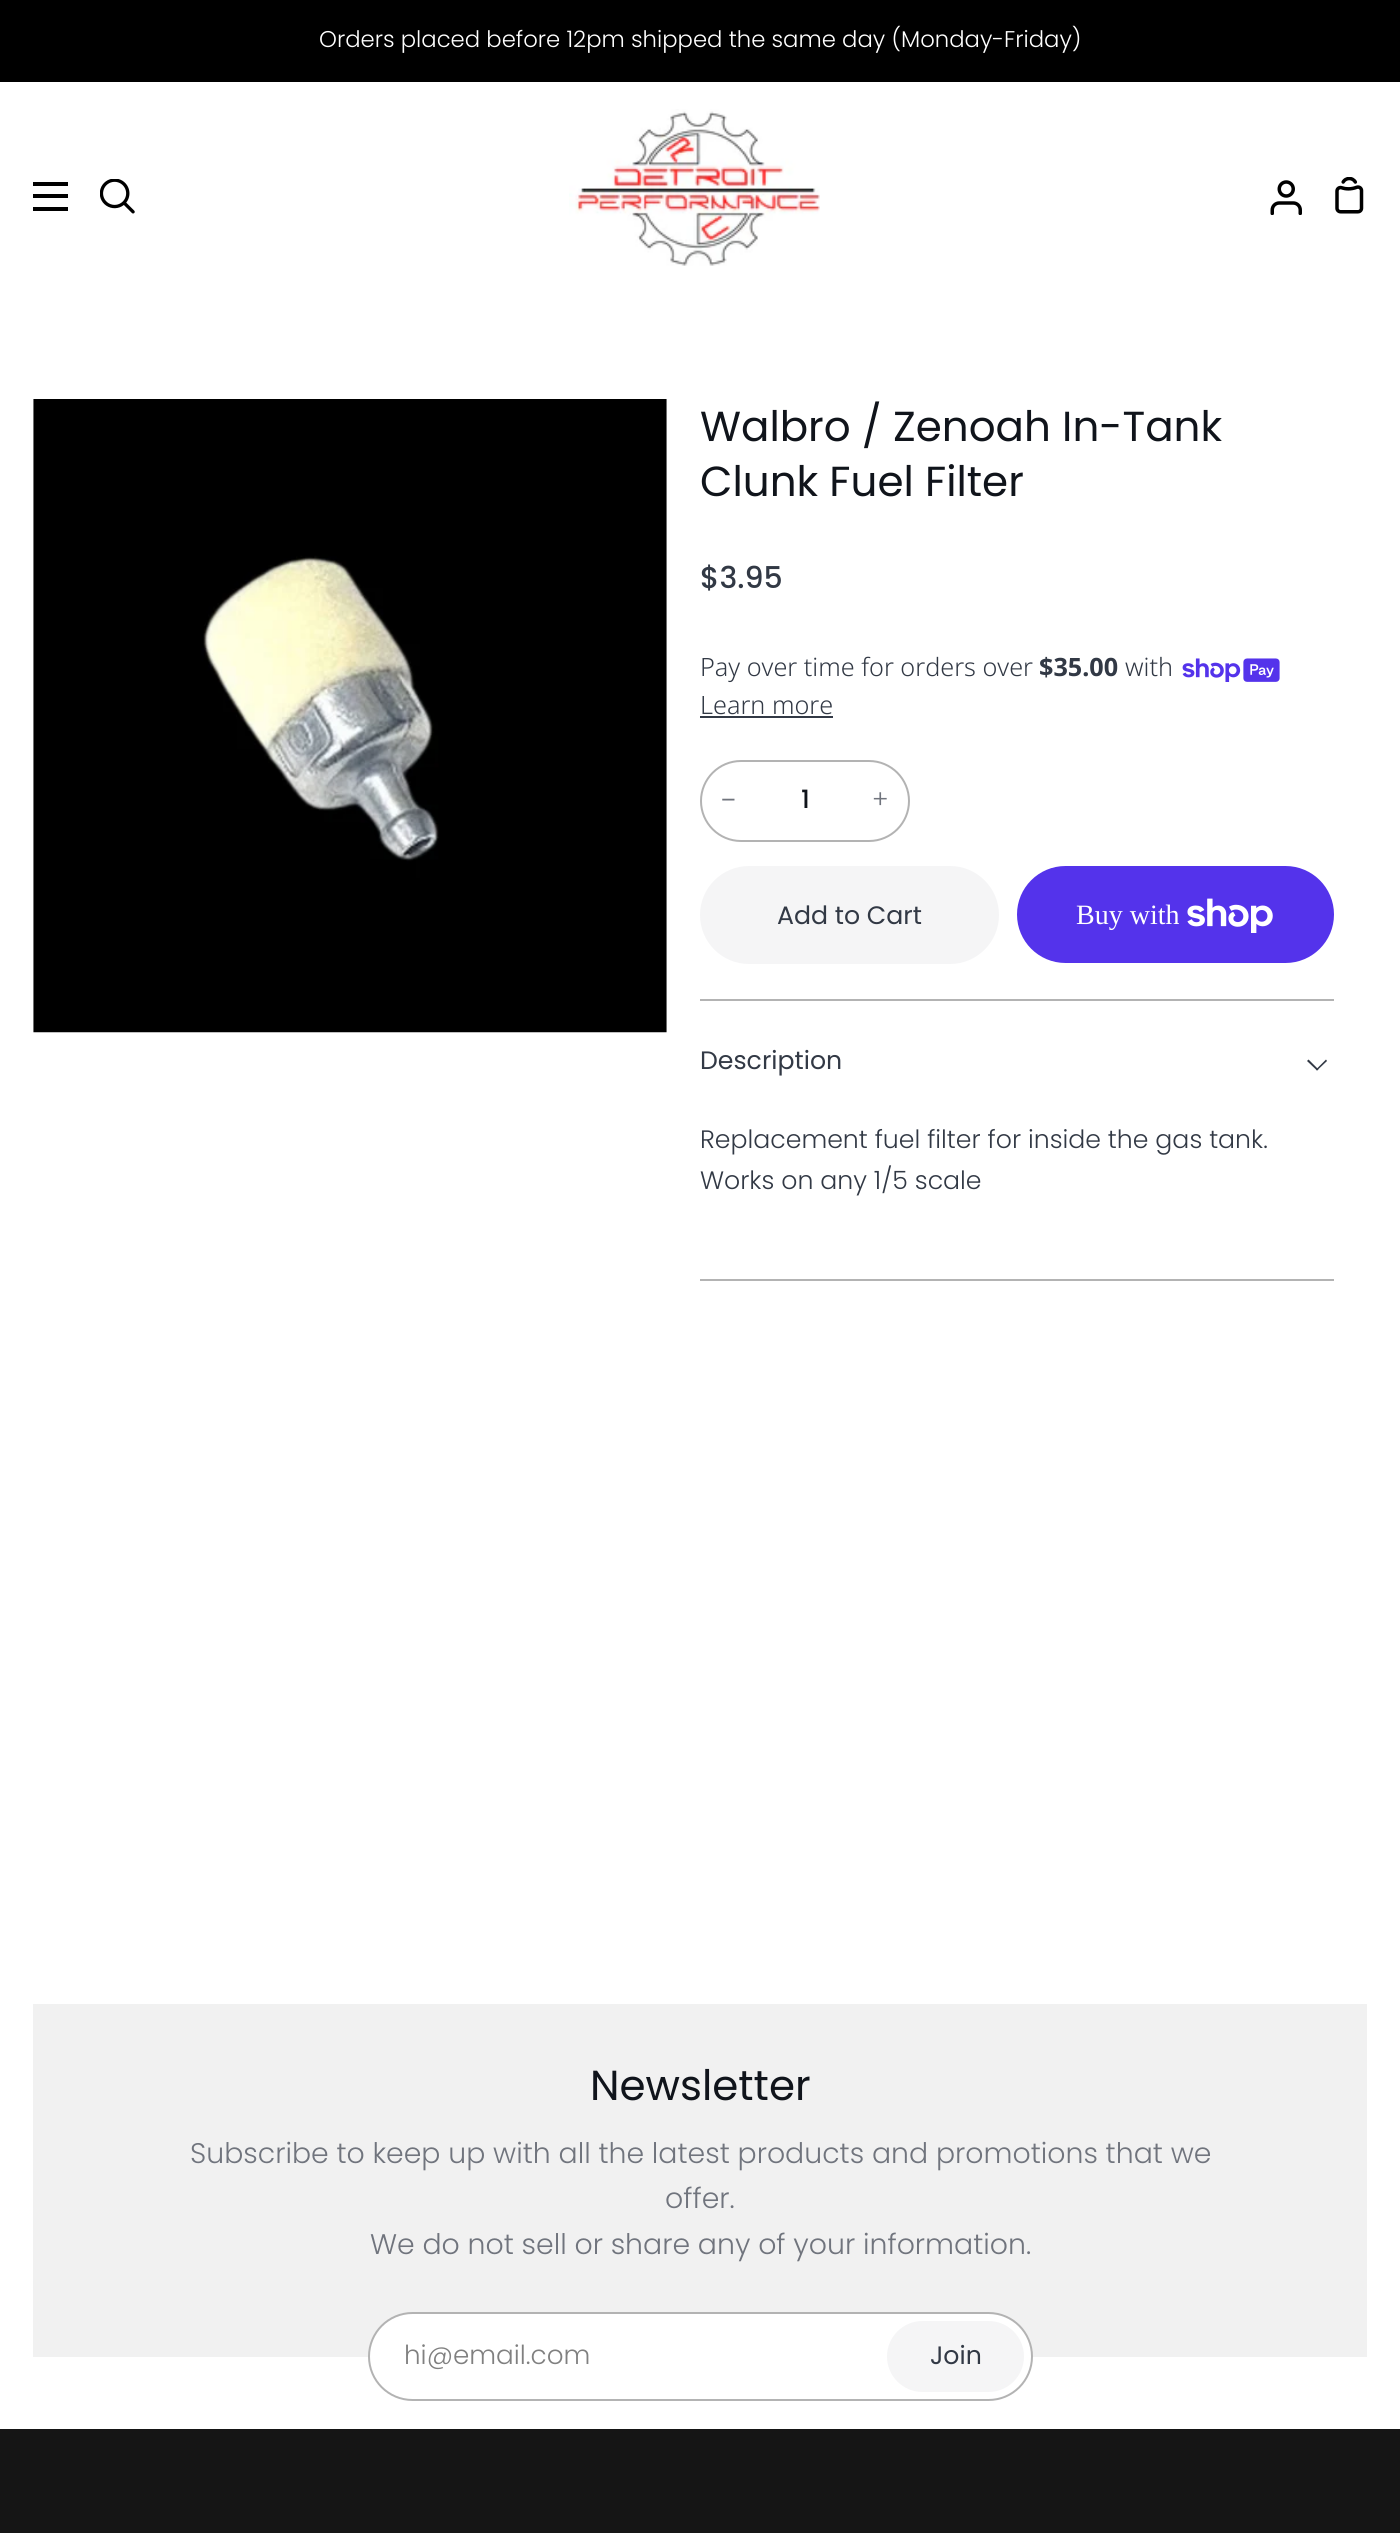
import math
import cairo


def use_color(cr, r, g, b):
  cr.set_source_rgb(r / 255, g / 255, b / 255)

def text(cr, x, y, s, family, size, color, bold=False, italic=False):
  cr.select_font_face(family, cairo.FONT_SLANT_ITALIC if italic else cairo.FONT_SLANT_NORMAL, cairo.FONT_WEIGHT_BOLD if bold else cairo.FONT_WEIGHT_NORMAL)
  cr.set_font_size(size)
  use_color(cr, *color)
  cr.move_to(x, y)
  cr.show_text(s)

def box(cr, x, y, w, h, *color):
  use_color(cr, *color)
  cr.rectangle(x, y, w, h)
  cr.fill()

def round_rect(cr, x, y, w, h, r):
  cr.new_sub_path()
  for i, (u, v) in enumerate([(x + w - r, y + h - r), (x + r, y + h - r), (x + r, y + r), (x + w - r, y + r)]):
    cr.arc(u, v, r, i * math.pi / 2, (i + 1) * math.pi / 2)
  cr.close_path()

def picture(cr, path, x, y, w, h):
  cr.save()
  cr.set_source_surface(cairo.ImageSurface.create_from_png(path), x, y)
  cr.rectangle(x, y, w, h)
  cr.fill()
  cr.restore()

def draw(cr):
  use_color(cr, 255, 255, 255)
  cr.paint()
  box(cr, 0, 0, 1400, 82, 0, 0, 0)
  box(cr, 33, 182, 35, 4, 0, 0, 0)
  box(cr, 33, 194, 35, 4, 0, 0, 0)
  box(cr, 33, 207, 35, 4, 0, 0, 0)
  picture(cr, "img_01.png", 100, 179, 35, 35)
  picture(cr, "img_02.png", 569, 109, 251, 157)
  picture(cr, "img_03.png", 1270, 180, 32, 35)
  picture(cr, "img_04.png", 1335, 177, 29, 37)
  picture(cr, "img_05.png", 33, 399, 634, 634)
  picture(cr, "img_06.png", 1182, 658, 98, 24)
  box(cr, 700, 716, 133, 2, 50, 57, 69)
  round_rect(cr, 701, 761, 208, 80, 40)
  use_color(cr, 179, 179, 179)
  cr.stroke()
  use_color(cr, 245, 245, 246)
  round_rect(cr, 700, 866, 299, 98, 49)
  cr.fill()
  use_color(cr, 84, 51, 235)
  round_rect(cr, 1017, 866, 317, 97, 48.5)
  cr.fill()
  picture(cr, "img_07.png", 1187, 898, 86, 35)
  box(cr, 700, 999, 634, 2, 179, 179, 179)
  box(cr, 700, 1279, 634, 2, 179, 179, 179)
  use_color(cr, 50, 57, 69)
  cr.new_path()
  cr.move_to(1316, 1069.5)
  cr.line_to(1326, 1059.5)
  cr.line_to(1327, 1061)
  cr.line_to(1317, 1070.5)
  cr.close_path()
  cr.fill()
  cr.new_path()
  cr.move_to(1307, 1061)
  cr.line_to(1308.5, 1059.5)
  cr.line_to(1318.5, 1069.5)
  cr.line_to(1317, 1070.5)
  cr.close_path()
  cr.fill()
  box(cr, 33, 2004, 1334, 353, 241, 241, 241)
  use_color(cr, 255, 255, 255)
  round_rect(cr, 369, 2313, 663, 87, 43.5)
  cr.fill_preserve()
  use_color(cr, 179, 179, 179)
  cr.stroke()
  use_color(cr, 245, 245, 246)
  round_rect(cr, 887, 2321, 137, 71, 35.5)
  cr.fill()
  box(cr, 0, 2429, 1400, 104, 21, 21, 21)
  text(cr, 319, 47, "Orders placed before 12pm shipped the same day (Monday-Friday)", "Poppins Light", 22.75, (255, 255, 255))
  text(cr, 700, 441, "Walbro / Zenoah In-Tank", "Poppins", 42, (16, 20, 27))
  text(cr, 700, 496, "Clunk Fuel Filter", "Poppins", 42, (16, 20, 27))
  text(cr, 700, 588, "$3.95", "Poppins Medium", 30, (50, 57, 69))
  text(cr, 700, 676, "Pay over time for orders over", "Noto Sans Light", 25.2, (50, 57, 69))
  text(cr, 1039, 676, "$35.00", "Noto Sans", 25.2, (50, 57, 69), bold=True)
  text(cr, 1125, 676, "with", "Noto Sans Light", 25.2, (50, 57, 69))
  text(cr, 700, 714, "Learn more", "Noto Sans Light", 25.2, (50, 57, 69))
  text(cr, 721, 808, "−", "Liberation Sans", 25.2, (112, 116, 125))
  text(cr, 801, 808, "1", "Poppins Medium", 25.2, (16, 20, 27))
  text(cr, 872, 808, "+", "Poppins Light", 25.2, (112, 116, 125))
  text(cr, 777, 924, "Add to Cart", "Poppins", 25.2, (50, 57, 69))
  text(cr, 1076, 924, "Buy with", "Liberation Serif", 28, (255, 255, 255))
  text(cr, 700, 1069, "Description", "Poppins", 25.2, (50, 57, 69))
  text(cr, 700, 1148, "Replacement fuel filter for inside the gas tank.", "Poppins Light", 25.2, (50, 57, 69))
  text(cr, 700, 1189, "Works on any 1/5 scale", "Poppins Light", 25.2, (50, 57, 69))
  text(cr, 590, 2100, "Newsletter", "Poppins", 42, (16, 20, 27))
  text(cr, 190, 2163, "Subscribe to keep up with all the latest products and promotions that we", "Poppins Light", 28.35, (112, 116, 125))
  text(cr, 665, 2208, "offer.", "Poppins Light", 28.35, (112, 116, 125))
  text(cr, 370, 2254, "We do not sell or share any of your information.", "Poppins Light", 28.35, (112, 116, 125))
  text(cr, 404, 2364, "hi@email.com", "Poppins Light", 26.25, (128, 128, 128))
  text(cr, 930, 2364, "Join", "Poppins", 25.2, (50, 57, 69))


surface = cairo.ImageSurface(cairo.FORMAT_RGB24, 1400, 2533)
cr = cairo.Context(surface)
options = cairo.FontOptions()
options.set_hint_metrics(cairo.HINT_METRICS_OFF)
options.set_hint_style(cairo.HINT_STYLE_NONE)
cr.set_font_options(options)
cr.set_miter_limit(4)
draw(cr)
surface.write_to_png("out.png")
